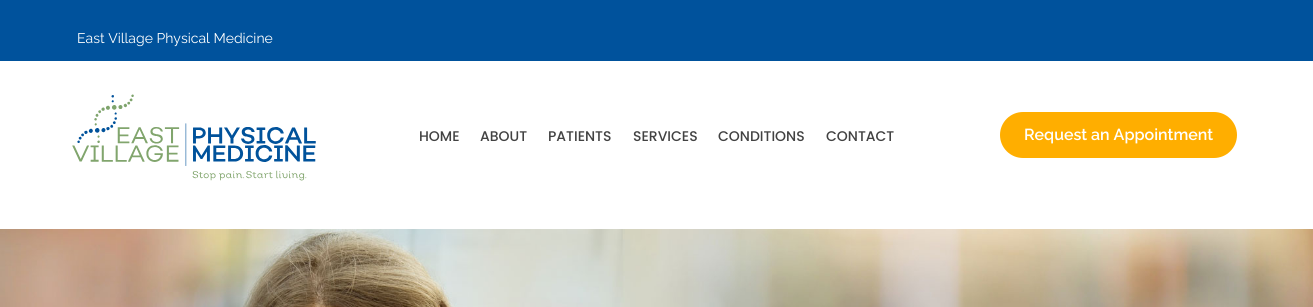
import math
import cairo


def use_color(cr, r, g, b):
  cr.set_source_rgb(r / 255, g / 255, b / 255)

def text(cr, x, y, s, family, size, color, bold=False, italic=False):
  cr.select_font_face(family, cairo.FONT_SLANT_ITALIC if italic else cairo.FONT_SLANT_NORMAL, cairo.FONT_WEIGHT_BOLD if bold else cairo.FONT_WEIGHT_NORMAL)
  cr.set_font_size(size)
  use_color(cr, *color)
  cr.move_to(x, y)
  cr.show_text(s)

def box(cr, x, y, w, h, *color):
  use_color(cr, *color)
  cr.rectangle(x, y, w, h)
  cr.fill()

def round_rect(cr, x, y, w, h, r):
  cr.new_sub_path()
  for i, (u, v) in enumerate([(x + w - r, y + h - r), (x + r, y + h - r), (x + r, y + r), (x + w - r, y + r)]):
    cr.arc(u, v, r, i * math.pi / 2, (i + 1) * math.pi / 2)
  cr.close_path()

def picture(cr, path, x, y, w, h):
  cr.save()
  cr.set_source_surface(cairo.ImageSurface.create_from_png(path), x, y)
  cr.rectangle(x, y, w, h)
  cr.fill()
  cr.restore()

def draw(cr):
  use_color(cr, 255, 255, 255)
  cr.paint()
  box(cr, 0, 0, 1313, 61, 0, 82, 156)
  picture(cr, "img_01.png", 72, 94, 244, 87)
  use_color(cr, 255, 174, 0)
  round_rect(cr, 1000, 112, 237, 46, 23)
  cr.fill()
  picture(cr, "img_02.png", 0, 229, 1313, 78)
  text(cr, 77, 43, "East Village Physical Medicine", "Raleway", 14, (255, 255, 255))
  text(cr, 419, 141, "HOME", "Poppins Medium", 14, (66, 66, 66))
  text(cr, 480, 141, "ABOUT", "Poppins Medium", 14, (66, 66, 66))
  text(cr, 548, 141, "PATIENTS", "Poppins Medium", 14, (66, 66, 66))
  text(cr, 633, 141, "SERVICES", "Poppins Medium", 14, (66, 66, 66))
  text(cr, 718, 141, "CONDITIONS", "Poppins Medium", 14, (66, 66, 66))
  text(cr, 826, 141, "CONTACT", "Poppins Medium", 14, (66, 66, 66))
  text(cr, 1024, 140, "Request an Appointment", "Raleway SemiBold", 16, (255, 255, 255))


surface = cairo.ImageSurface(cairo.FORMAT_RGB24, 1313, 307)
cr = cairo.Context(surface)
options = cairo.FontOptions()
options.set_hint_metrics(cairo.HINT_METRICS_OFF)
options.set_hint_style(cairo.HINT_STYLE_NONE)
cr.set_font_options(options)
cr.set_miter_limit(4)
draw(cr)
surface.write_to_png("out.png")
